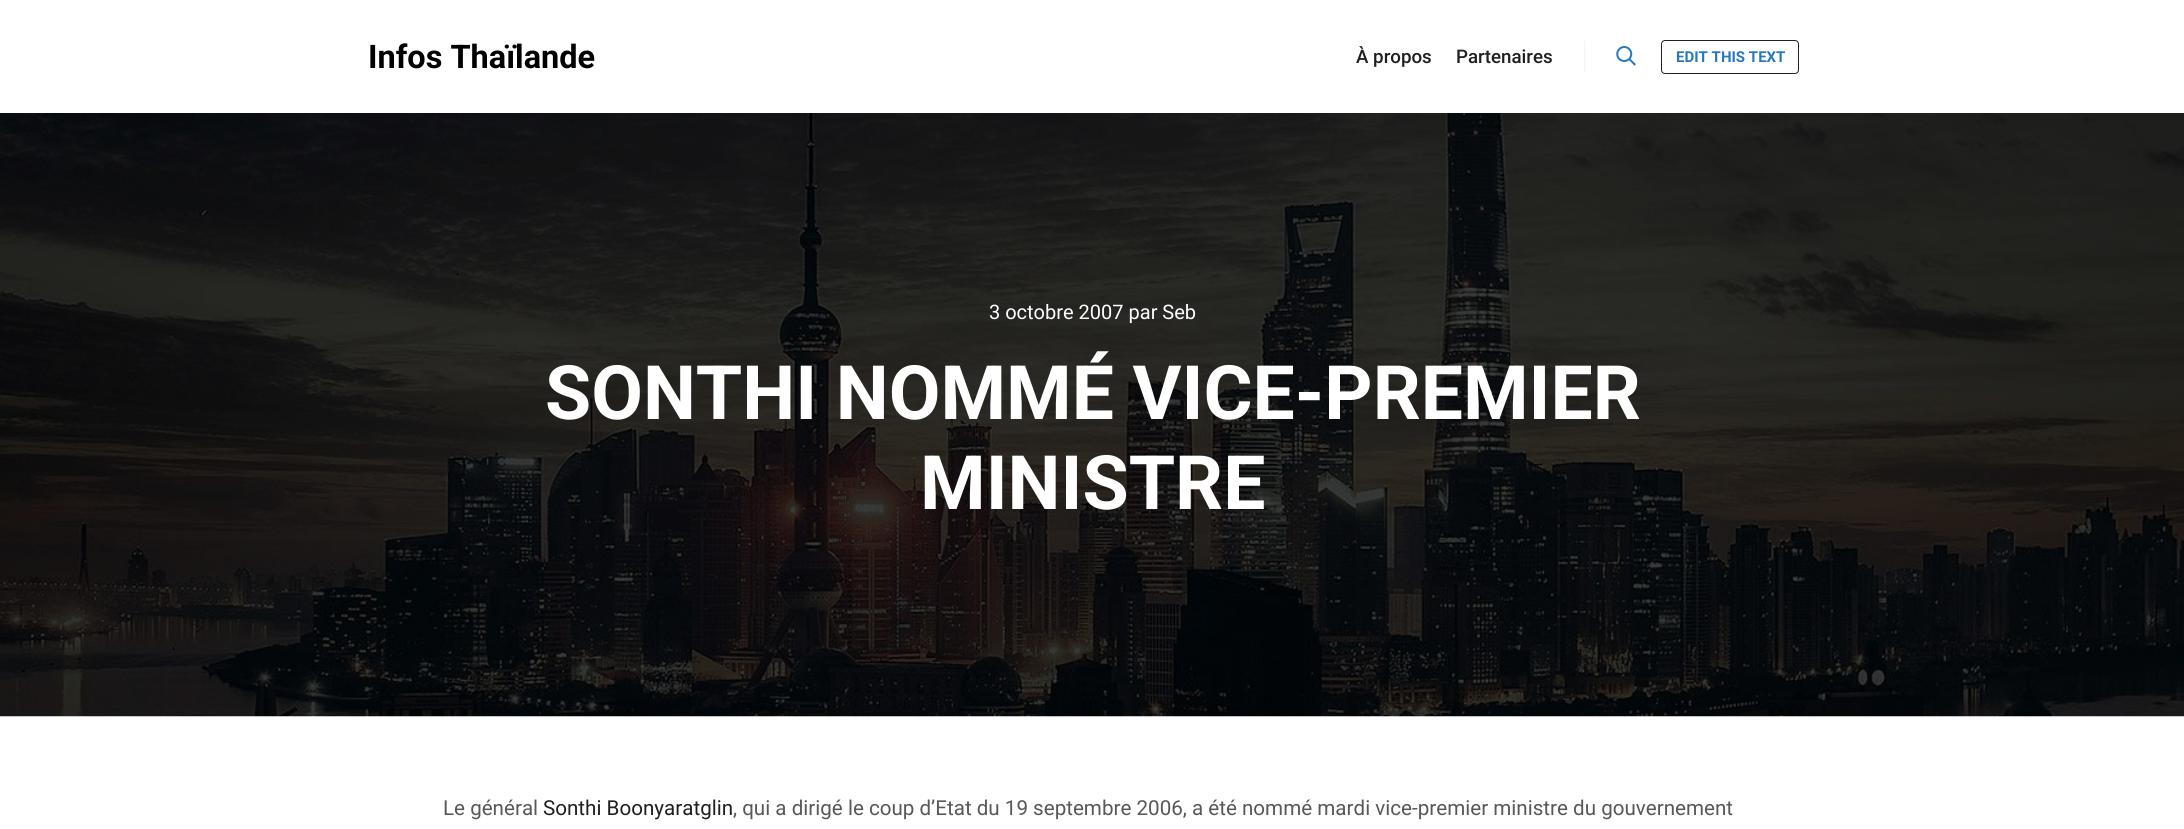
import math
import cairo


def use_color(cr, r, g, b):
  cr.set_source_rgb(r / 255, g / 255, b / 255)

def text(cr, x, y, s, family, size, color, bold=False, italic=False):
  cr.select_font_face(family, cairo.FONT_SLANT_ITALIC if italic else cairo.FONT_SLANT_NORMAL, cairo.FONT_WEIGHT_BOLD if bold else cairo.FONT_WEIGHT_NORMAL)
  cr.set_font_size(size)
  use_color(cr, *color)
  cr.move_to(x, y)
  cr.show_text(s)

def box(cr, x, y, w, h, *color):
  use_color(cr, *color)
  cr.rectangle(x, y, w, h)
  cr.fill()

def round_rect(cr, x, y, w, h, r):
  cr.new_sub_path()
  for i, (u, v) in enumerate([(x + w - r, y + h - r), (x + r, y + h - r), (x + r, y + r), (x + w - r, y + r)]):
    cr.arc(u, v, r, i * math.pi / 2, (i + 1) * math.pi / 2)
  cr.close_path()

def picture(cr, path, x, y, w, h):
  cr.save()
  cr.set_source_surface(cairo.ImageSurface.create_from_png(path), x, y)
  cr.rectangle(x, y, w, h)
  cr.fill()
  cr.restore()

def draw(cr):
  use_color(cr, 255, 255, 255)
  cr.paint()
  box(cr, 1584, 41, 1, 32, 243, 243, 243)
  picture(cr, "img_01.png", 1616, 46, 20, 20)
  round_rect(cr, 1661.5, 40.5, 137, 33, 3.5)
  use_color(cr, 34, 34, 34)
  cr.set_line_width(1)
  cr.stroke()
  picture(cr, "img_02.png", 0, 113, 2184, 604)
  text(cr, 368, 68, "Infos Thaïlande", "Roboto", 32.5, (0, 0, 0), bold=True)
  text(cr, 1356, 63, "À propos", "Roboto Medium", 18.75, (31, 31, 31))
  text(cr, 1456, 63, "Partenaires", "Roboto Medium", 18.75, (31, 31, 31))
  text(cr, 1676, 62, "EDIT THIS TEXT", "Roboto", 15, (40, 120, 191), bold=True)
  text(cr, 989, 319, "3 octobre 2007 par Seb", "Roboto", 20, (255, 255, 255))
  text(cr, 545, 419, "SONTHI NOMMÉ VICE-PREMIER", "Roboto", 75, (255, 255, 255), bold=True)
  text(cr, 920, 509, "MINISTRE", "Roboto", 75, (255, 255, 255), bold=True)
  text(cr, 443, 815, "Le général", "Roboto", 20.6, (88, 88, 88))
  text(cr, 543, 815, "Sonthi Boonyaratglin", "Roboto", 20.6, (31, 31, 31))
  text(cr, 733, 815, ", qui a dirigé le coup d’Etat du 19 septembre 2006, a été nommé mardi vice-premier ministre du gouvernement", "Roboto", 20.6, (88, 88, 88))


surface = cairo.ImageSurface(cairo.FORMAT_RGB24, 2184, 829)
cr = cairo.Context(surface)
options = cairo.FontOptions()
options.set_hint_metrics(cairo.HINT_METRICS_OFF)
options.set_hint_style(cairo.HINT_STYLE_NONE)
cr.set_font_options(options)
cr.set_miter_limit(4)
draw(cr)
surface.write_to_png("out.png")
